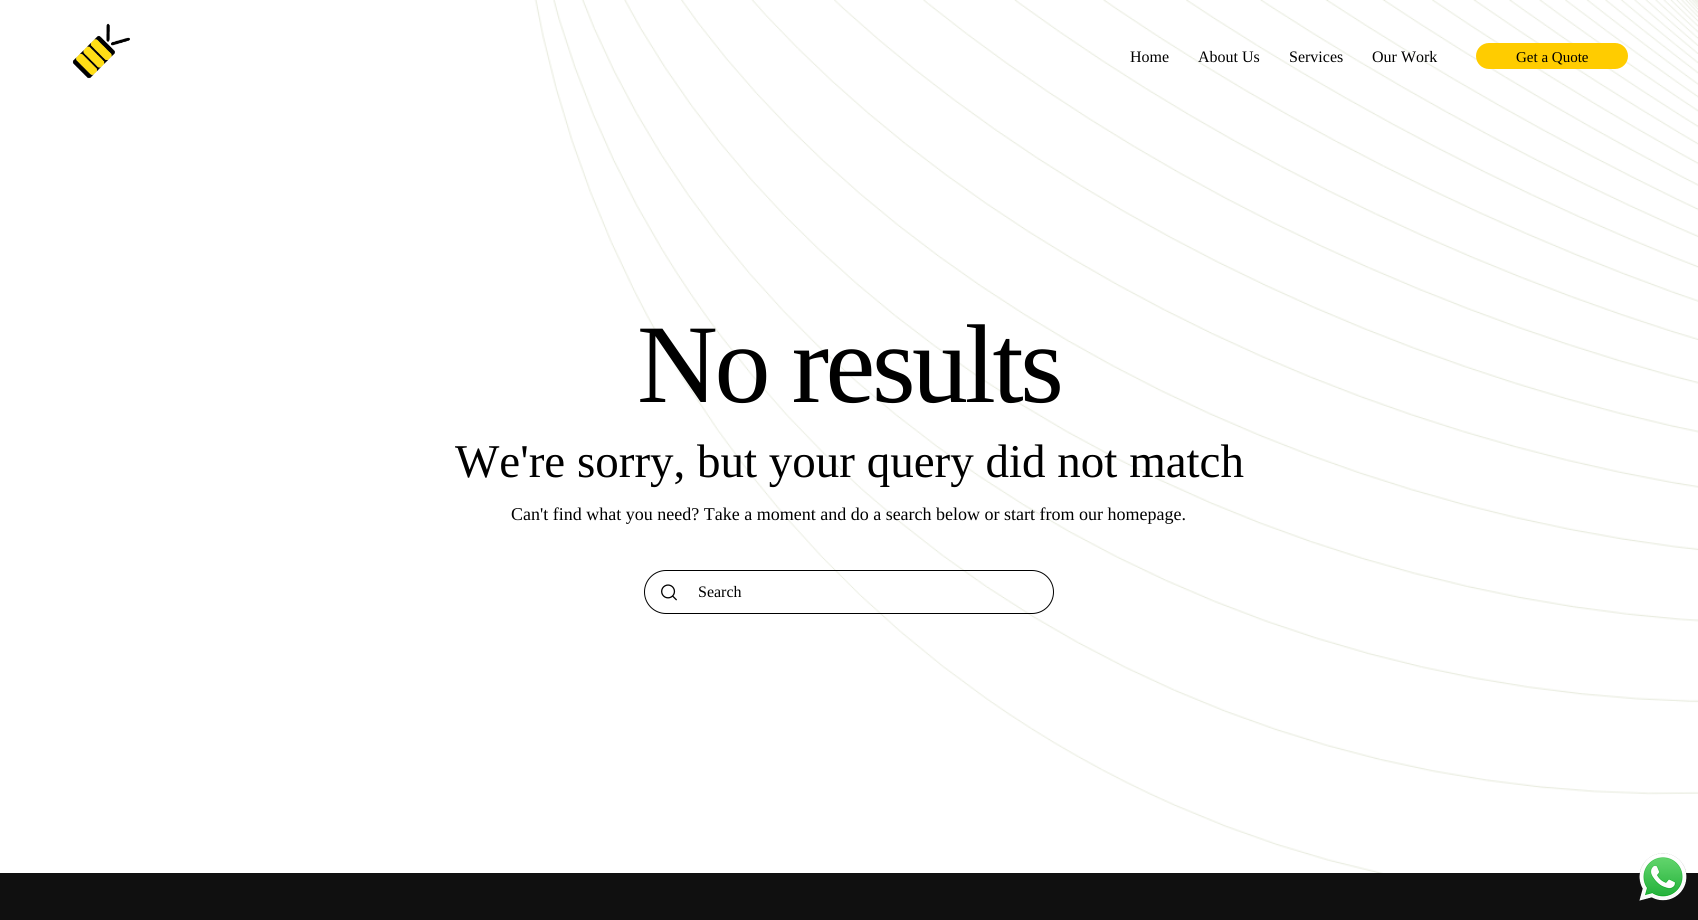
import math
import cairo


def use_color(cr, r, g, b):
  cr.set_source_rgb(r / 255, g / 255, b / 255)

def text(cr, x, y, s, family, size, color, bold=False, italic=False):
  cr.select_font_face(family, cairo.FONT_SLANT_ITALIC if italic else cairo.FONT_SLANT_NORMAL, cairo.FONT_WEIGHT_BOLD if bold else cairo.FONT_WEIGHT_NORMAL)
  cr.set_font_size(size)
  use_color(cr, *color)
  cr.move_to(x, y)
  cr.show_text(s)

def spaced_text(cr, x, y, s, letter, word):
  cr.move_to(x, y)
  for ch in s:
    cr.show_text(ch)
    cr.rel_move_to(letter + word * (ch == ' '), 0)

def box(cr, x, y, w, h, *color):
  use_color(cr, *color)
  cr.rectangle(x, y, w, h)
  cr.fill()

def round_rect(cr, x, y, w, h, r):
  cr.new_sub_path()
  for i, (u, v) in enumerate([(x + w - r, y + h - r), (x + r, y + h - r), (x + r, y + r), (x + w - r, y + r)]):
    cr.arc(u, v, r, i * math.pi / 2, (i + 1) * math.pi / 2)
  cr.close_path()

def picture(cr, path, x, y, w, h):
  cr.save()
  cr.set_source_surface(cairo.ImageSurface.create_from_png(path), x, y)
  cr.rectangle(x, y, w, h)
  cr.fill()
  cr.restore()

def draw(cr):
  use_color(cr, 255, 255, 255)
  cr.paint()
  picture(cr, "img_01.png", 534, 0, 1164, 873)
  picture(cr, "img_02.png", 72, 23, 58, 56)
  use_color(cr, 255, 204, 0)
  round_rect(cr, 1476, 43, 152, 26, 13)
  cr.fill()
  round_rect(cr, 644.5, 570.5, 409, 43, 21.5)
  use_color(cr, 0, 0, 0)
  cr.set_line_width(1)
  cr.stroke()
  picture(cr, "img_03.png", 661, 584, 16, 17)
  box(cr, 0, 873, 1698, 47, 16, 16, 16)
  picture(cr, "img_04.png", 1639, 853, 48, 48)
  text(cr, 1130, 62, "Home", "Liberation Serif", 16, (0, 0, 0))
  text(cr, 1198, 62, "About Us", "Liberation Serif", 16, (0, 0, 0))
  text(cr, 1289, 62, "Services", "Liberation Serif", 16, (0, 0, 0))
  text(cr, 1372, 62, "Our Work", "Liberation Serif", 16, (0, 0, 0))
  text(cr, 1516, 62, "Get a Quote", "Liberation Serif", 15, (0, 0, 0))
  cr.set_font_size(112)
  spaced_text(cr, 637, 402, "No results", -3.4, 0)
  text(cr, 455, 477, "We're sorry, but your query did not match", "Liberation Serif", 47, (0, 0, 0))
  text(cr, 511, 520, "Can't find what you need? Take a moment and do a search below or start from our homepage.", "Liberation Serif", 18, (0, 0, 0))
  text(cr, 698, 597, "Search", "Liberation Serif", 16, (0, 0, 0))


surface = cairo.ImageSurface(cairo.FORMAT_RGB24, 1698, 920)
cr = cairo.Context(surface)
options = cairo.FontOptions()
options.set_hint_metrics(cairo.HINT_METRICS_OFF)
options.set_hint_style(cairo.HINT_STYLE_NONE)
cr.set_font_options(options)
cr.set_miter_limit(4)
draw(cr)
surface.write_to_png("out.png")
